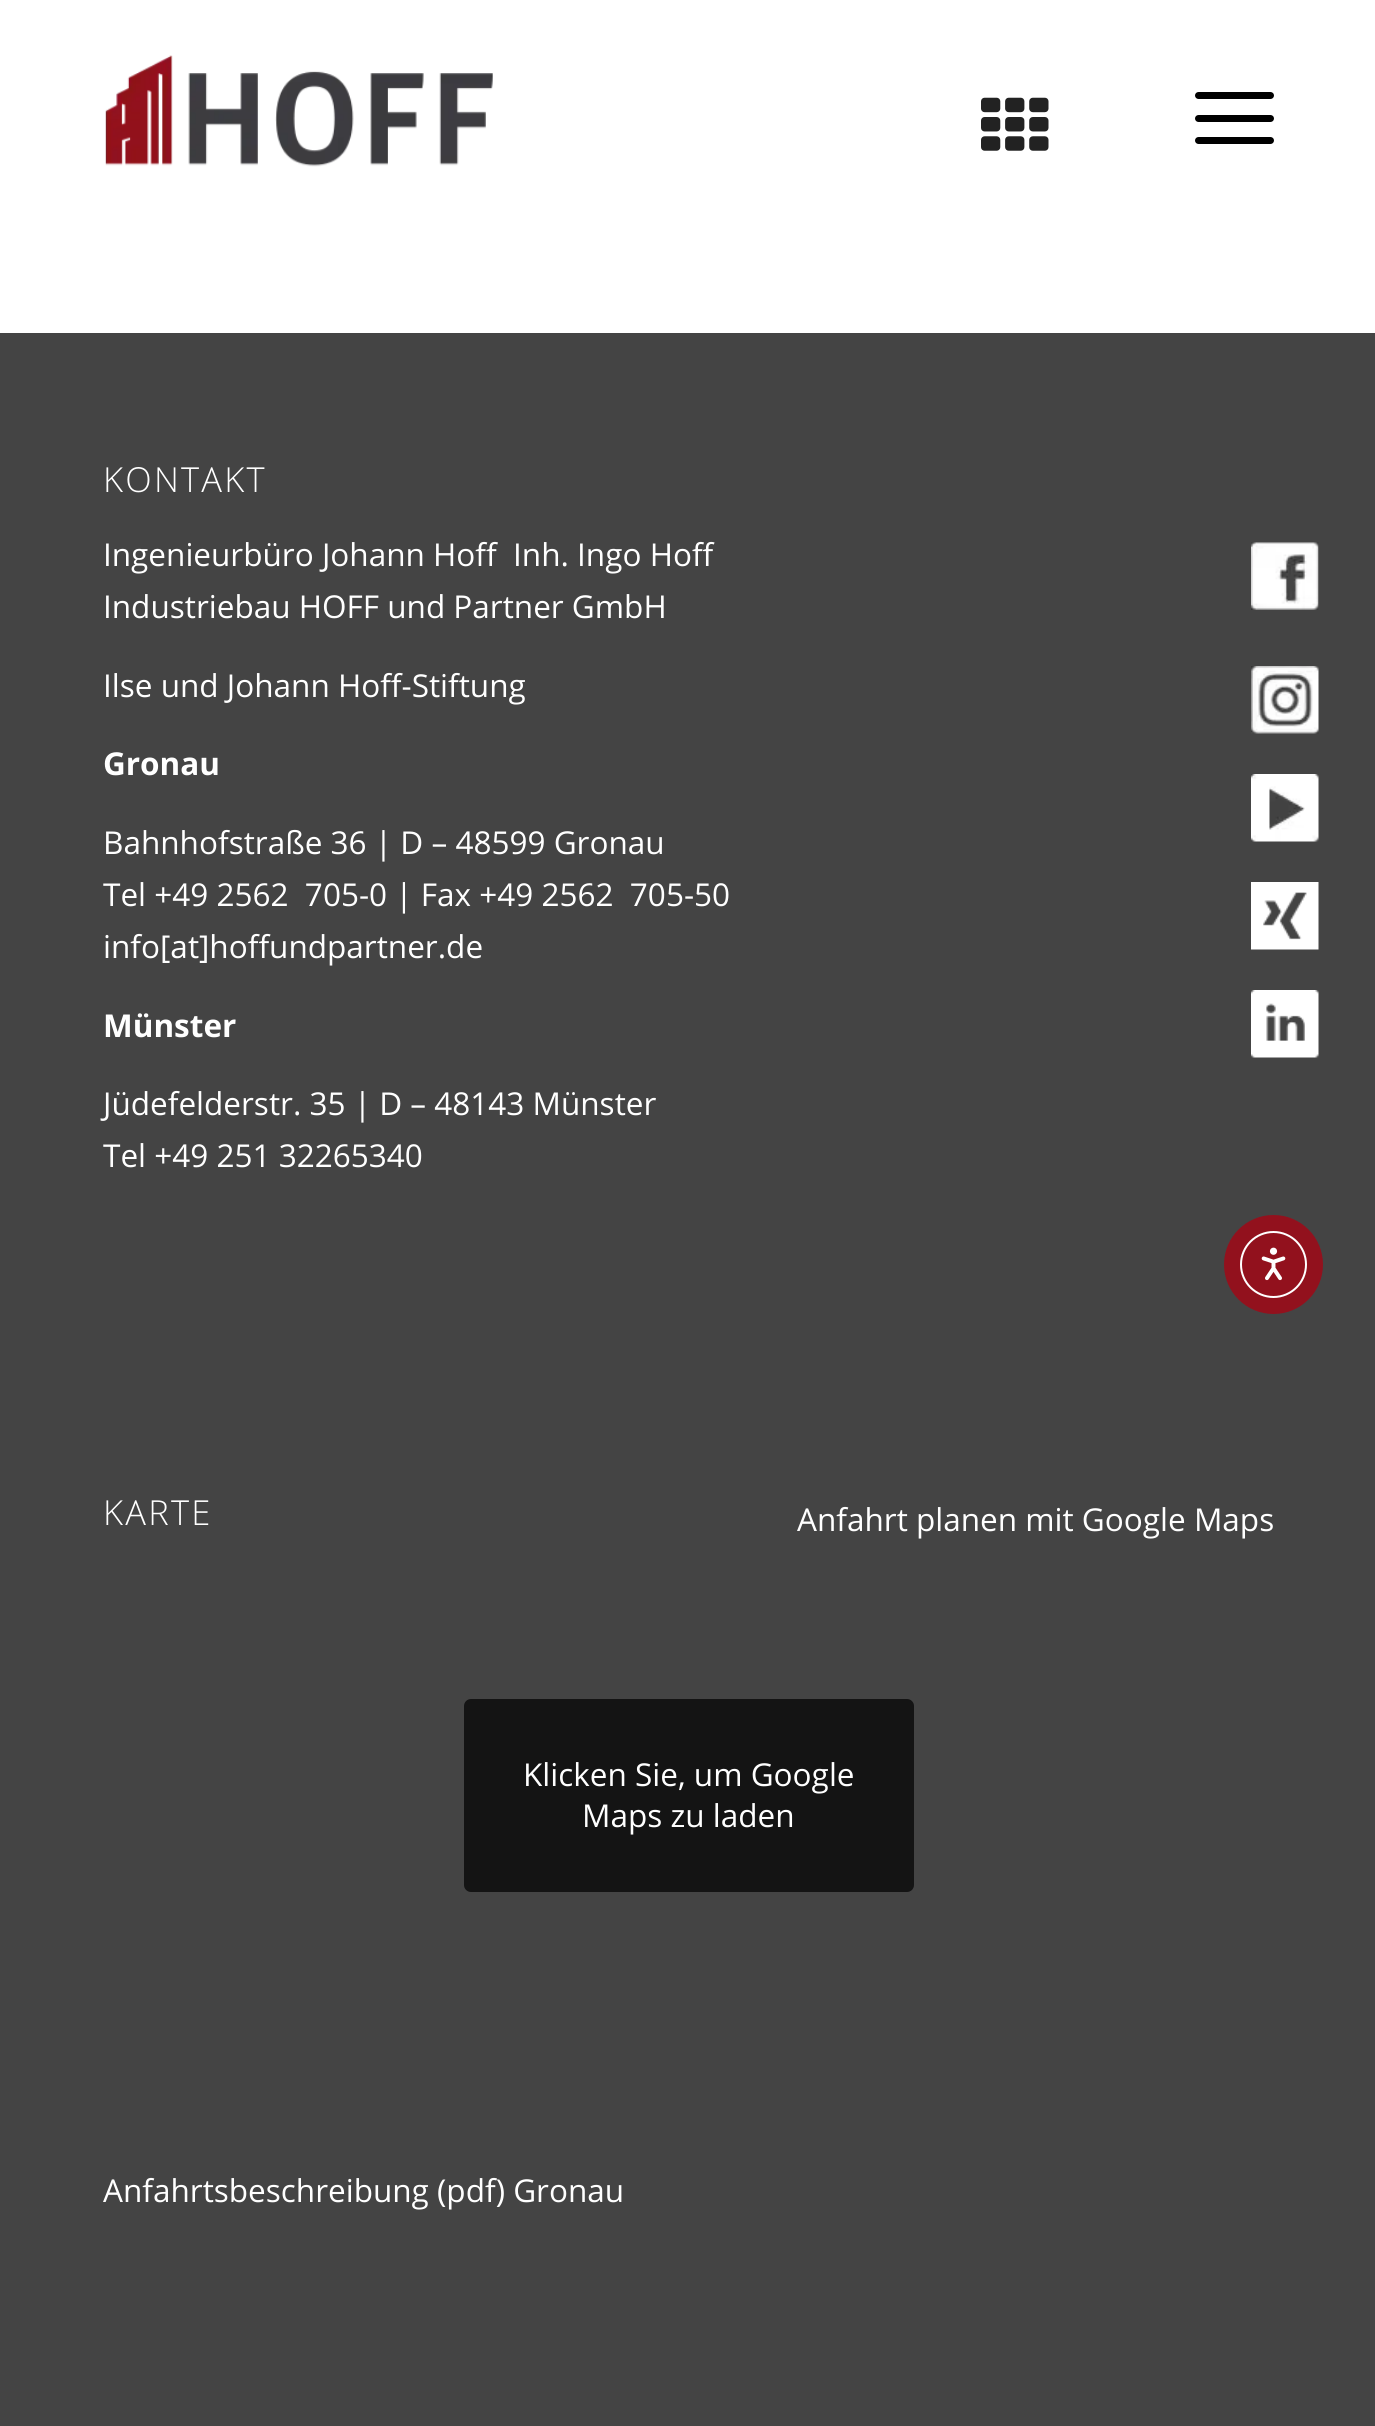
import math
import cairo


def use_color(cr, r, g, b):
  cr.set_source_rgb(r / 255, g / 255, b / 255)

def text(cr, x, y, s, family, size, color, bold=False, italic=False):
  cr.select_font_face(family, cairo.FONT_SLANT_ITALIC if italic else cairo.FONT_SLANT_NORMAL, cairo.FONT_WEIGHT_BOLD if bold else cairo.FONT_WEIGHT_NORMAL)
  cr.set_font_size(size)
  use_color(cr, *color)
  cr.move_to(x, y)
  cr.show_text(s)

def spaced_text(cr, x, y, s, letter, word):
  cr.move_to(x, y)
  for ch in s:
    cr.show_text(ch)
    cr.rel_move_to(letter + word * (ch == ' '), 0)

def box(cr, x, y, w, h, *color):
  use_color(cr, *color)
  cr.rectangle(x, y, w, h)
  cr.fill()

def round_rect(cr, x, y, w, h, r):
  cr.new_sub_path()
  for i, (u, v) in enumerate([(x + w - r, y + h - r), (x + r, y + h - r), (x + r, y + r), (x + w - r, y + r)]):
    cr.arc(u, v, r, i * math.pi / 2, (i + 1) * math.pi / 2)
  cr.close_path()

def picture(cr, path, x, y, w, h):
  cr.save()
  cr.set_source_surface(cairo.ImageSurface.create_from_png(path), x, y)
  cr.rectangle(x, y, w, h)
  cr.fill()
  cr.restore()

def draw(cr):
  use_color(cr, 255, 255, 255)
  cr.paint()
  picture(cr, "img_01.png", 105, 55, 388, 112)
  picture(cr, "img_02.png", 981, 97, 68, 54)
  use_color(cr, 0, 0, 0)
  round_rect(cr, 1195, 115, 79, 7, 3.5)
  cr.fill()
  round_rect(cr, 1195, 92, 79, 7, 3.5)
  cr.fill()
  round_rect(cr, 1195, 137, 79, 7, 3.5)
  cr.fill()
  box(cr, 0, 333, 1375, 2093, 68, 68, 68)
  picture(cr, "img_03.png", 1251, 542, 68, 68)
  picture(cr, "img_04.png", 1251, 666, 68, 68)
  picture(cr, "img_05.png", 1251, 774, 68, 68)
  picture(cr, "img_06.png", 1251, 882, 68, 68)
  picture(cr, "img_07.png", 1251, 990, 68, 68)
  use_color(cr, 20, 20, 20)
  round_rect(cr, 464, 1699, 450, 193, 7)
  cr.fill()
  use_color(cr, 146, 17, 29)
  cr.arc(1273.5, 1264.5, 49.5, 0, 2 * math.pi)
  cr.fill()
  cr.arc(1273.5, 1264.5, 32.5, 0, 2 * math.pi)
  use_color(cr, 255, 255, 255)
  cr.stroke()
  picture(cr, "img_08.png", 1261, 1247, 25, 34)
  cr.select_font_face("Open Sans Light")
  cr.set_font_size(34.5)
  spaced_text(cr, 103, 492, "KONTAKT", 2.25, 0)
  text(cr, 103, 566, "Ingenieurbüro Johann Hoff  Inh. Ingo Hoff", "Open Sans", 31.5, (255, 255, 255))
  text(cr, 103, 618, "Industriebau HOFF und Partner GmbH", "Open Sans", 31.5, (255, 255, 255))
  text(cr, 103, 697, "Ilse und Johann Hoff-Stiftung", "Open Sans", 31.5, (255, 255, 255))
  text(cr, 103, 775, "Gronau", "Open Sans", 31.5, (255, 255, 255), bold=True)
  text(cr, 103, 854, "Bahnhofstraße 36 | D – 48599 Gronau", "Open Sans", 31.5, (255, 255, 255))
  text(cr, 103, 906, "Tel +49 2562  705-0 | Fax +49 2562  705-50", "Open Sans", 31.5, (255, 255, 255))
  text(cr, 103, 958, "info[at]hoffundpartner.de", "Open Sans", 31.5, (255, 255, 255))
  text(cr, 103, 1037, "Münster", "Open Sans", 31.5, (255, 255, 255), bold=True)
  text(cr, 103, 1115, "Jüdefelderstr. 35 | D – 48143 Münster", "Open Sans", 31.5, (255, 255, 255))
  text(cr, 103, 1167, "Tel +49 251 32265340", "Open Sans", 31.5, (255, 255, 255))
  cr.select_font_face("Open Sans Light")
  cr.set_font_size(34.5)
  spaced_text(cr, 103, 1525, "KARTE", 2.25, 0)
  text(cr, 523, 1786, "Klicken Sie, um Google", "Open Sans", 31.5, (255, 255, 255))
  text(cr, 582, 1827, "Maps zu laden", "Open Sans", 31.5, (255, 255, 255))
  text(cr, 797, 1531, "Anfahrt planen mit Google Maps", "Open Sans", 31.5, (255, 255, 255))
  text(cr, 103, 2202, "Anfahrtsbeschreibung (pdf) Gronau", "Open Sans", 31.5, (255, 255, 255))


surface = cairo.ImageSurface(cairo.FORMAT_RGB24, 1375, 2426)
cr = cairo.Context(surface)
options = cairo.FontOptions()
options.set_hint_metrics(cairo.HINT_METRICS_OFF)
options.set_hint_style(cairo.HINT_STYLE_NONE)
cr.set_font_options(options)
cr.set_miter_limit(4)
draw(cr)
surface.write_to_png("out.png")
